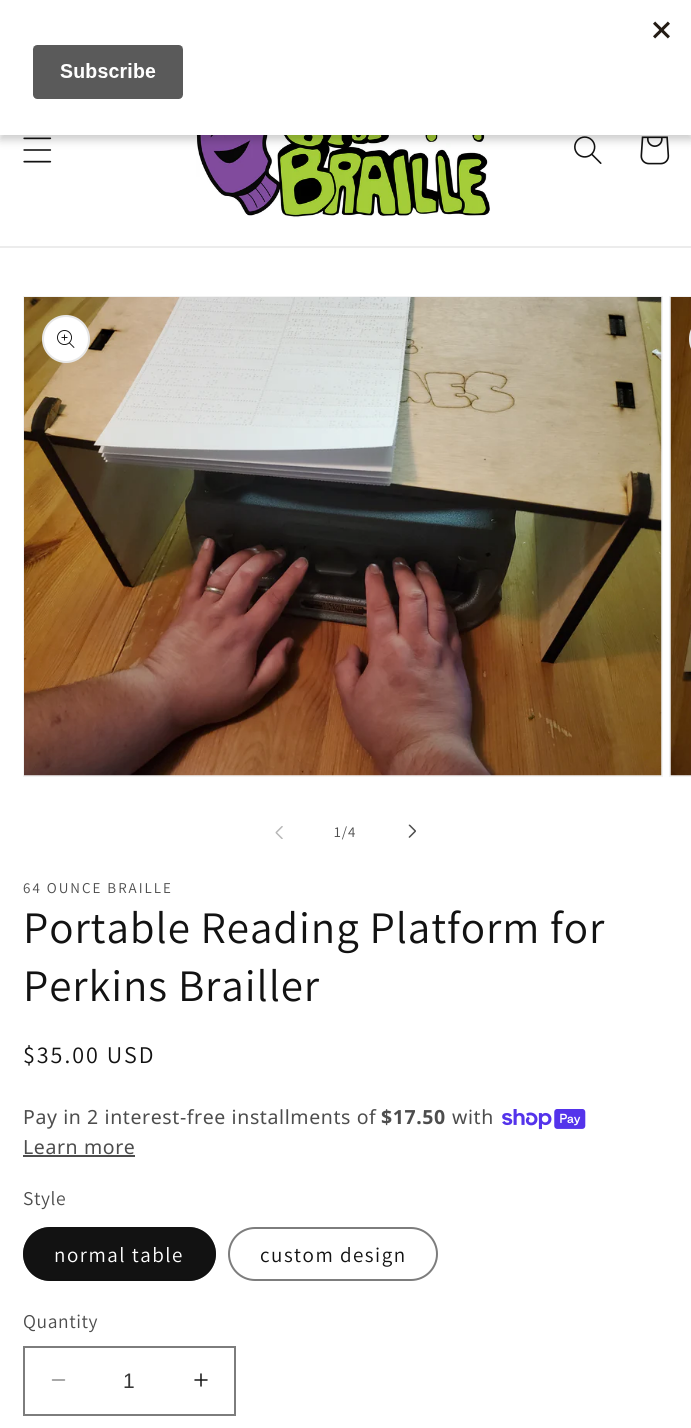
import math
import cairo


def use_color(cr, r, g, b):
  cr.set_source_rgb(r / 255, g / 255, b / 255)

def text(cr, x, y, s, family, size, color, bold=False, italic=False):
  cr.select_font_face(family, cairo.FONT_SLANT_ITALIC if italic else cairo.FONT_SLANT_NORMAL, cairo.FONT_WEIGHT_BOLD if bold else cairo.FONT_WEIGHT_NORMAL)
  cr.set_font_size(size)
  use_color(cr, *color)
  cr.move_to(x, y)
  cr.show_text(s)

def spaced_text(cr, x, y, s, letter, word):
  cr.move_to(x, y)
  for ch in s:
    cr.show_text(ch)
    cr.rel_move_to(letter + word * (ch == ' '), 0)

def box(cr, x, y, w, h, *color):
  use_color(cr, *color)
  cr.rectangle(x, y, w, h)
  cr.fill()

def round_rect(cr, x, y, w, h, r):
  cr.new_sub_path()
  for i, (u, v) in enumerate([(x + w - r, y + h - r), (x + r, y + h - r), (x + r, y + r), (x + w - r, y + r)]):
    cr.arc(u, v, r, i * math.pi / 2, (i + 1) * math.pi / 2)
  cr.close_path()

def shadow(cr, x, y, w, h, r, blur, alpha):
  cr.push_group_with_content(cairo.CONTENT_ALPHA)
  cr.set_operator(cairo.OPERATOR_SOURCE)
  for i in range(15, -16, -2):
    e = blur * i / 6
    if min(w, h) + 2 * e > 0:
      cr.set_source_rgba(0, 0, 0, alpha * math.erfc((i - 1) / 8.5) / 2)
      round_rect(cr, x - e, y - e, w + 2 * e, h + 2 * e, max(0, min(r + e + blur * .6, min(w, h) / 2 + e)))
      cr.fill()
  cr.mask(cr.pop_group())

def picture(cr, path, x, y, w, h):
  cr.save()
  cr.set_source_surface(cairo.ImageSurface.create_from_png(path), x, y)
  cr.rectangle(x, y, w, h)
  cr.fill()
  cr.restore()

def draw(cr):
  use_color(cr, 255, 255, 255)
  cr.paint()
  picture(cr, "img_02.png", 23, 137, 29, 26)
  picture(cr, "img_03.png", 196, 135, 294, 83)
  picture(cr, "img_04.png", 574, 136, 28, 28)
  picture(cr, "img_05.png", 640, 136, 30, 29)
  use_color(cr, 0, 0, 0)
  shadow(cr, 0, 5, 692, 135, 0, 4.5, 0.2)
  box(cr, 0, 0, 691, 135, 255, 255, 255)
  picture(cr, "img_01.png", 32, 21, 638, 78)
  box(cr, 0, 246, 691, 2, 236, 236, 236)
  cr.rectangle(24, 297, 638, 479)
  use_color(cr, 243, 243, 243)
  cr.stroke()
  picture(cr, "img_06.png", 24, 297, 638, 479)
  use_color(cr, 255, 255, 255)
  cr.arc(66, 339, 24, 0, 2 * math.pi)
  cr.fill()
  cr.arc(66, 339, 23, 0, 2 * math.pi)
  cr.set_source_rgba(0.071, 0.071, 0.071, 0.1)
  cr.stroke()
  picture(cr, "img_07.png", 57, 330, 18, 18)
  cr.rectangle(670, 297, 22, 479)
  use_color(cr, 243, 243, 243)
  cr.stroke()
  picture(cr, "img_08.png", 670, 297, 21, 479)
  use_color(cr, 255, 255, 255)
  cr.new_path()
  cr.move_to(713, 315)
  cr.line_to(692, 315)
  cr.line_to(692, 363)
  cr.line_to(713, 363)
  cr.curve_to(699.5, 363, 689, 352.5, 689, 339)
  cr.curve_to(689, 325.5, 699.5, 315, 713, 315)
  cr.close_path()
  cr.fill()
  round_rect(cr, 690, 316, 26, 46, 23)
  cr.set_source_rgba(0.071, 0.071, 0.071, 0.1)
  cr.stroke()
  picture(cr, "img_09.png", 275, 826, 8, 13)
  picture(cr, "img_10.png", 408, 824, 8, 14)
  picture(cr, "img_11.png", 502, 1109, 84, 21)
  box(cr, 23, 1155, 112, 2, 77, 77, 77)
  use_color(cr, 18, 18, 18)
  round_rect(cr, 23, 1227, 193, 54, 27)
  cr.fill()
  round_rect(cr, 24, 1228, 191, 52, 26)
  cr.set_source_rgba(0.071, 0.071, 0.071, 0.55)
  cr.stroke()
  round_rect(cr, 229, 1228, 208, 52, 26)
  use_color(cr, 125, 125, 125)
  cr.stroke()
  picture(cr, "img_12.png", 51, 1379, 15, 2)
  picture(cr, "img_13.png", 194, 1373, 14, 14)
  cr.rectangle(24, 1347, 211, 68)
  cr.stroke()
  cr.select_font_face("Assistant")
  cr.set_font_size(15)
  use_color(cr, 77, 77, 77)
  spaced_text(cr, 334, 837, "1/4", 1, 0)
  spaced_text(cr, 23, 893, "64 OUNCE BRAILLE", 2, 0)
  cr.set_font_size(45)
  use_color(cr, 18, 18, 18)
  spaced_text(cr, 23, 943, "Portable Reading Platform for", 0.9, 0)
  spaced_text(cr, 23, 1001, "Perkins Brailler", 0.9, 0)
  cr.set_font_size(24)
  spaced_text(cr, 23, 1063, "$35.00 USD", 2, 0)
  cr.select_font_face("Noto Sans")
  cr.set_font_size(19.5)
  use_color(cr, 77, 77, 77)
  spaced_text(cr, 23, 1124, "Pay in 2 interest-free installments of", 0.6, 0)
  cr.select_font_face("Noto Sans", cairo.FONT_SLANT_NORMAL, cairo.FONT_WEIGHT_BOLD)
  spaced_text(cr, 381, 1124, "$17.50", 0.6, 0)
  cr.select_font_face("Noto Sans")
  spaced_text(cr, 452, 1124, "with", 0.6, 0)
  spaced_text(cr, 23, 1154, "Learn more", 0.6, 0)
  cr.select_font_face("Assistant")
  spaced_text(cr, 23, 1205, "Style", 0.6, 0)
  cr.set_font_size(21)
  use_color(cr, 255, 255, 255)
  spaced_text(cr, 54, 1262, "normal table", 1.5, 0)
  use_color(cr, 18, 18, 18)
  spaced_text(cr, 260, 1262, "custom design", 1.5, 0)
  cr.set_font_size(19.5)
  use_color(cr, 77, 77, 77)
  spaced_text(cr, 23, 1328, "Quantity", 0.6, 0)
  text(cr, 123, 1388, "1", "Liberation Sans", 21, (54, 54, 54))


surface = cairo.ImageSurface(cairo.FORMAT_RGB24, 691, 1428)
cr = cairo.Context(surface)
options = cairo.FontOptions()
options.set_hint_metrics(cairo.HINT_METRICS_OFF)
options.set_hint_style(cairo.HINT_STYLE_NONE)
cr.set_font_options(options)
cr.set_miter_limit(4)
draw(cr)
surface.write_to_png("out.png")
